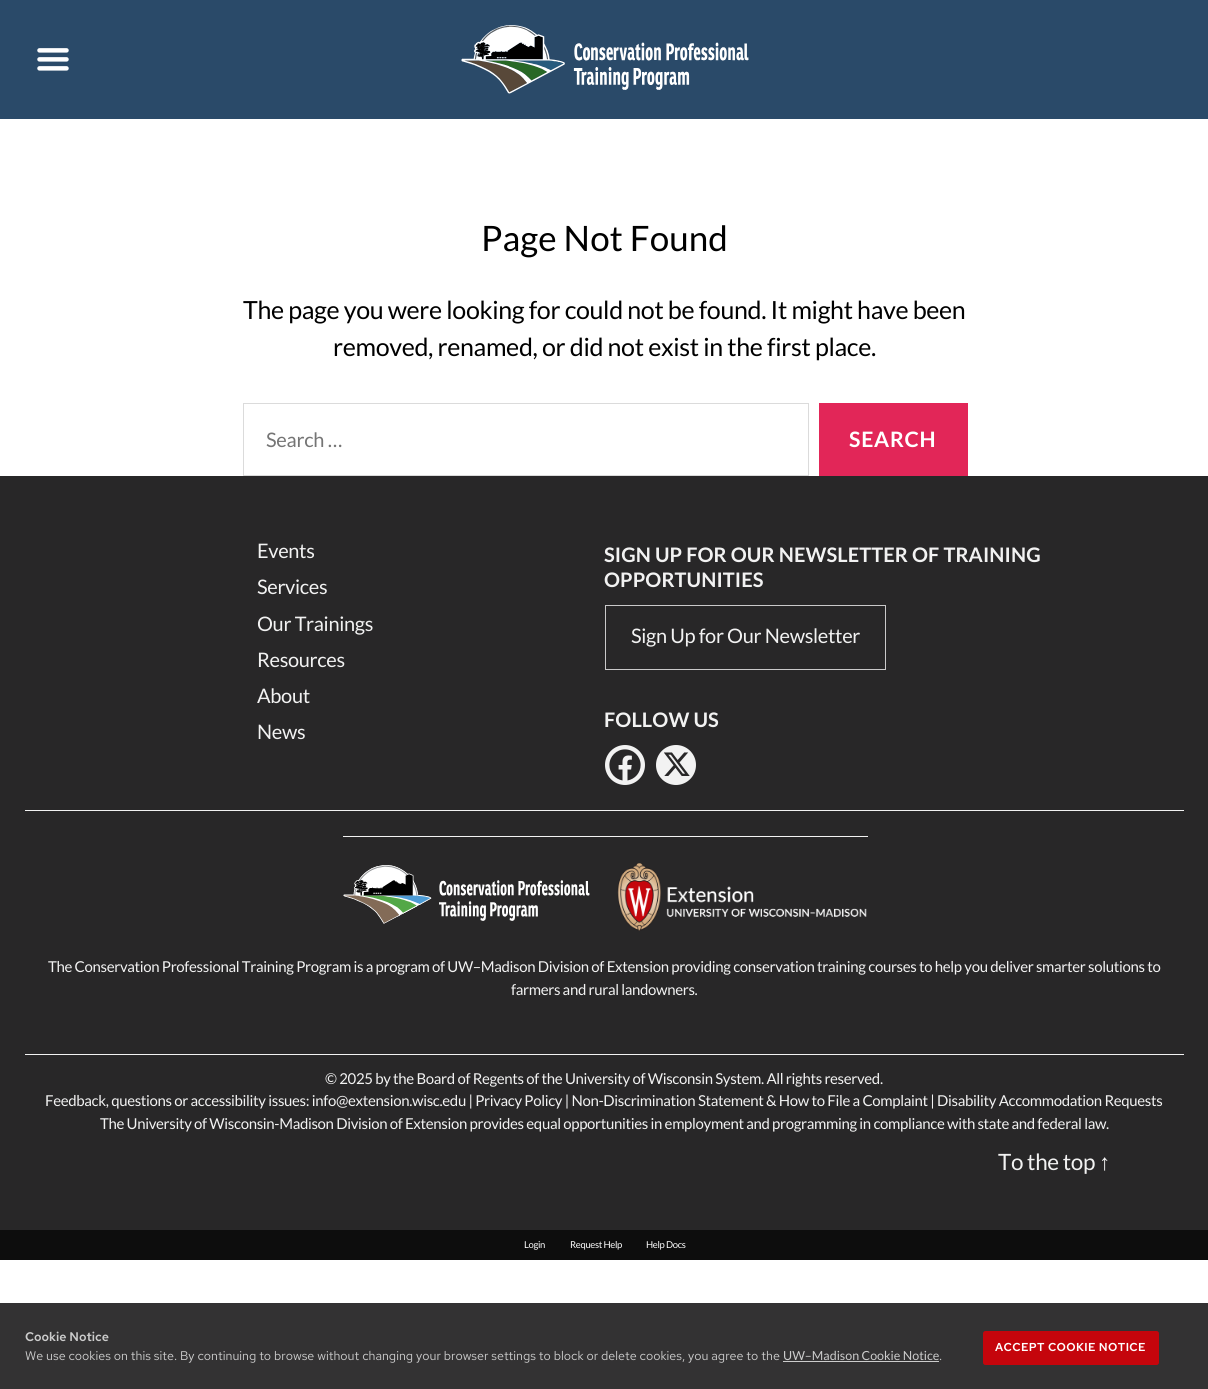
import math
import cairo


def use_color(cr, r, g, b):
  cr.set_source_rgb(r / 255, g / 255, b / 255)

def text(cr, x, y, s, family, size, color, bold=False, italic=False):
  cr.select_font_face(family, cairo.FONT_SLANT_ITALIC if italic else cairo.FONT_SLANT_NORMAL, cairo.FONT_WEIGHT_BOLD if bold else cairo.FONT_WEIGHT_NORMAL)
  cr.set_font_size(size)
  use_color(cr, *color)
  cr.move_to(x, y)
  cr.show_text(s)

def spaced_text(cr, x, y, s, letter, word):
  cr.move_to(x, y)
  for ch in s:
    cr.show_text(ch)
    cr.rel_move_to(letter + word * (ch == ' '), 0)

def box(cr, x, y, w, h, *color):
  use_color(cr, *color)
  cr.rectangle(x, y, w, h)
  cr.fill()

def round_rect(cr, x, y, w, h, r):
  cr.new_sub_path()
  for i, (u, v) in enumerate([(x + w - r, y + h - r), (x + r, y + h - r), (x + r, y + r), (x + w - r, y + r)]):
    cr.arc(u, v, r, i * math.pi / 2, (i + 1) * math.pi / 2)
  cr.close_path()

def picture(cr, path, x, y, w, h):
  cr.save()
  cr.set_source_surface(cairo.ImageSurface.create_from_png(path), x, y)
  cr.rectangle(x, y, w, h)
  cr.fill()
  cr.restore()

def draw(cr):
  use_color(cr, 255, 255, 255)
  cr.paint()
  box(cr, 0, 0, 1208, 119, 42, 74, 105)
  picture(cr, "img_01.png", 37, 48, 32, 23)
  picture(cr, "img_02.png", 461, 25, 288, 69)
  cr.rectangle(243.5, 403.5, 565, 72)
  use_color(cr, 219, 219, 219)
  cr.set_line_width(1)
  cr.stroke()
  box(cr, 819, 403, 149, 73, 226, 38, 88)
  box(cr, 0, 476, 1208, 754, 40, 39, 40)
  cr.rectangle(605.5, 605.5, 280, 64)
  use_color(cr, 202, 201, 202)
  cr.stroke()
  use_color(cr, 242, 242, 242)
  cr.arc(625, 765, 20, 0, 2 * math.pi)
  cr.fill()
  picture(cr, "img_03.png", 609, 749, 32, 32)
  cr.arc(676, 765, 20, 0, 2 * math.pi)
  cr.fill()
  picture(cr, "img_04.png", 664, 752, 26, 24)
  box(cr, 25, 810, 1159, 1, 242, 242, 242)
  box(cr, 343, 836, 525, 1, 242, 242, 242)
  picture(cr, "img_05.png", 343, 865, 247, 59)
  picture(cr, "img_06.png", 617, 863, 250, 68)
  box(cr, 25, 1054, 1159, 1, 242, 242, 242)
  box(cr, 0, 1230, 1208, 30, 13, 13, 13)
  box(cr, 0, 1303, 1208, 86, 51, 50, 51)
  box(cr, 783, 1361, 156, 1, 204, 204, 204)
  use_color(cr, 197, 5, 12)
  round_rect(cr, 983, 1331, 176, 34, 2.5)
  cr.fill()
  cr.select_font_face("Lato")
  cr.set_font_size(35)
  use_color(cr, 0, 0, 0)
  spaced_text(cr, 481, 251, "Page Not Found", 0.1, 0)
  cr.set_font_size(25)
  spaced_text(cr, 243, 319, "The page you were looking for could not be found. It might have been", -0.34, 0)
  spaced_text(cr, 333, 356, "removed, renamed, or did not exist in the first place.", -0.34, 0)
  cr.set_font_size(20)
  use_color(cr, 117, 117, 117)
  spaced_text(cr, 266, 447, "Search …", -0.25, 0)
  cr.select_font_face("Lato", cairo.FONT_SLANT_NORMAL, cairo.FONT_WEIGHT_BOLD)
  cr.set_font_size(21.25)
  use_color(cr, 255, 255, 255)
  spaced_text(cr, 849, 447, "SEARCH", 0.75, 0)
  cr.select_font_face("Lato")
  cr.set_font_size(20)
  use_color(cr, 242, 242, 242)
  spaced_text(cr, 257, 558, "Events", -0.34, 0)
  spaced_text(cr, 257, 594, "Services", -0.34, 0)
  spaced_text(cr, 257, 631, "Our Trainings", -0.34, 0)
  spaced_text(cr, 257, 667, "Resources", -0.34, 0)
  spaced_text(cr, 257, 703, "About", -0.34, 0)
  spaced_text(cr, 257, 739, "News", -0.34, 0)
  cr.select_font_face("Lato", cairo.FONT_SLANT_NORMAL, cairo.FONT_WEIGHT_BOLD)
  spaced_text(cr, 604, 562, "SIGN UP FOR OUR NEWSLETTER OF TRAINING", 0.1, 0)
  spaced_text(cr, 604, 587, "OPPORTUNITIES", 0.1, 0)
  cr.select_font_face("Lato")
  spaced_text(cr, 631, 643, "Sign Up for Our Newsletter", -0.34, 0)
  cr.select_font_face("Lato", cairo.FONT_SLANT_NORMAL, cairo.FONT_WEIGHT_BOLD)
  spaced_text(cr, 604, 727, "FOLLOW US", 0.1, 0)
  cr.select_font_face("Lato")
  cr.set_font_size(15)
  spaced_text(cr, 48, 972, "The Conservation Professional Training Program is a program of UW–Madison Division of Extension providing conservation training courses to help you deliver smarter solutions to", -0.34, 0)
  spaced_text(cr, 511, 995, "farmers and rural landowners.", -0.34, 0)
  spaced_text(cr, 325, 1084, "© 2025 by the Board of Regents of the University of Wisconsin System. All rights reserved.", -0.34, 0)
  spaced_text(cr, 45, 1106, "Feedback, questions or accessibility issues: info@extension.wisc.edu | Privacy Policy | Non-Discrimination Statement & How to File a Complaint | Disability Accommodation Requests", -0.34, 0)
  spaced_text(cr, 100, 1129, "The University of Wisconsin-Madison Division of Extension provides equal opportunities in employment and programming in compliance with state and federal law.", -0.34, 0)
  cr.set_font_size(22.5)
  spaced_text(cr, 998, 1170, "To the top", -0.34, 0)
  cr.select_font_face("Liberation Sans")
  spaced_text(cr, 1099, 1170, "↑", -0.34, 0)
  cr.select_font_face("Lato")
  cr.set_font_size(9.5)
  use_color(cr, 255, 255, 255)
  spaced_text(cr, 524, 1248, "Login", -0.34, 0)
  spaced_text(cr, 570, 1248, "Request Help", -0.34, 0)
  spaced_text(cr, 646, 1248, "Help Docs", -0.34, 0)
  text(cr, 25, 1341, "Cookie Notice", "Red Hat Text SemiBold", 12.5, (204, 204, 204))
  text(cr, 25, 1360, "We use cookies on this site. By continuing to browse without changing your browser settings to block or delete cookies, you agree to the", "Red Hat Text", 12.5, (204, 204, 204))
  text(cr, 783, 1360, "UW–Madison Cookie Notice", "Lato", 12.5, (204, 204, 204))
  text(cr, 939, 1360, ".", "Red Hat Text", 12.5, (204, 204, 204))
  cr.select_font_face("Red Hat Text SemiBold")
  cr.set_font_size(11.5)
  use_color(cr, 255, 255, 255)
  spaced_text(cr, 995, 1351, "ACCEPT COOKIE NOTICE", 0.4, 0)


surface = cairo.ImageSurface(cairo.FORMAT_RGB24, 1208, 1389)
cr = cairo.Context(surface)
options = cairo.FontOptions()
options.set_hint_metrics(cairo.HINT_METRICS_OFF)
options.set_hint_style(cairo.HINT_STYLE_NONE)
cr.set_font_options(options)
cr.set_miter_limit(4)
draw(cr)
surface.write_to_png("out.png")
